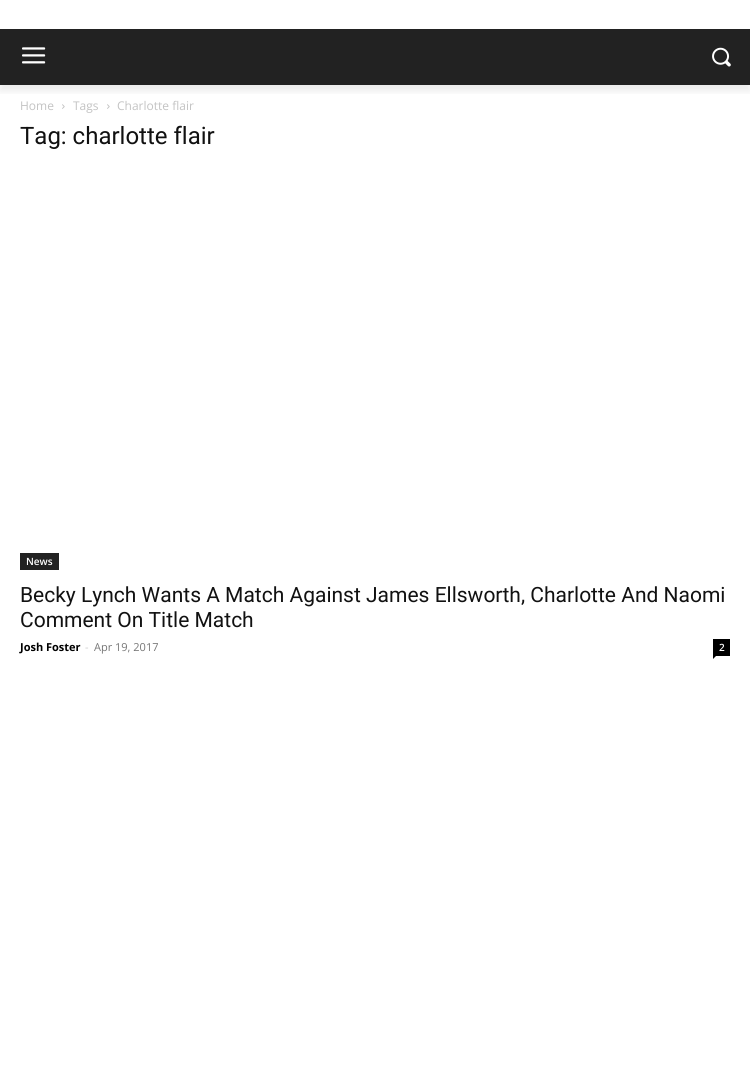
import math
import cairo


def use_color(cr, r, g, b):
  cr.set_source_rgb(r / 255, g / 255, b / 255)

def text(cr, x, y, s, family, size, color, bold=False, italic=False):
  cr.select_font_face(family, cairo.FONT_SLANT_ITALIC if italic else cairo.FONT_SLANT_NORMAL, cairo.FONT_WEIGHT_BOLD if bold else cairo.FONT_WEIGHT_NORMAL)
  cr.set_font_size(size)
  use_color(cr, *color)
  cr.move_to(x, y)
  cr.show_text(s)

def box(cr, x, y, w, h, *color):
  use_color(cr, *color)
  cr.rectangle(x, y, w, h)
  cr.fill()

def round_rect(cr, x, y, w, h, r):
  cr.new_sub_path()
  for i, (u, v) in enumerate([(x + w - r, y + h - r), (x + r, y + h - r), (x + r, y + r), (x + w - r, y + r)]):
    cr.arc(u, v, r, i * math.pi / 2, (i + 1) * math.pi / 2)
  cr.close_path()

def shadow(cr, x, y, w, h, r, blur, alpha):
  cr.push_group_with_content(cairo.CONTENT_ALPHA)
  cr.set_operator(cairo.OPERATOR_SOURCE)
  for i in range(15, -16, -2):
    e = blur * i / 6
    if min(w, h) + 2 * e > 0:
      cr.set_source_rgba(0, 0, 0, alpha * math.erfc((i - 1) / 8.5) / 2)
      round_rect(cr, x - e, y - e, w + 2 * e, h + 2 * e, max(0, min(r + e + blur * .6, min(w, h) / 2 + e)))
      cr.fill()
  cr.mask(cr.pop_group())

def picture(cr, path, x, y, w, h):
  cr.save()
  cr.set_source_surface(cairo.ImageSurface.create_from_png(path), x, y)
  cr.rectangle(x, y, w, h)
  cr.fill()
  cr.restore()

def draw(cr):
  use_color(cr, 255, 255, 255)
  cr.paint()
  box(cr, 0, 29, 750, 56, 34, 34, 34)
  picture(cr, "img_01.png", 22, 47, 24, 17)
  picture(cr, "img_02.png", 712, 47, 19, 20)
  cr.save()
  cr.rectangle(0, 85, 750, 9)
  cr.clip()
  use_color(cr, 0, 0, 0)
  shadow(cr, 0, 35, 750, 56, 0, 4, 0.08)
  cr.restore()
  picture(cr, "img_03.png", 62, 104, 3, 5)
  picture(cr, "img_03.png", 107, 104, 3, 5)
  box(cr, 20, 553, 39, 17, 34, 34, 34)
  box(cr, 713, 639, 17, 17, 0, 0, 0)
  cr.new_path()
  cr.move_to(713, 656)
  cr.line_to(716, 656)
  cr.line_to(713, 659)
  cr.close_path()
  cr.fill()
  text(cr, 20, 110, "Home", "Open Sans", 12, (195, 195, 195))
  text(cr, 73, 110, "Tags", "Open Sans", 12, (195, 195, 195))
  text(cr, 117, 110, "Charlotte flair", "Open Sans", 12, (195, 195, 195))
  text(cr, 20, 144, "Tag: charlotte flair", "Roboto", 24, (17, 17, 17))
  text(cr, 26, 565, "News", "Open Sans SemiBold", 10, (255, 255, 255))
  text(cr, 20, 602, "Becky Lynch Wants A Match Against James Ellsworth, Charlotte And Naomi", "Roboto", 21, (17, 17, 17))
  text(cr, 20, 627, "Comment On Title Match", "Roboto", 21, (17, 17, 17))
  text(cr, 20, 651, "Josh Foster", "Open Sans", 11, (0, 0, 0), bold=True)
  text(cr, 85, 651, "-", "Open Sans", 11, (204, 204, 204))
  text(cr, 94, 651, "Apr 19, 2017", "Open Sans", 11, (118, 118, 118))
  text(cr, 719, 651, "2", "Open Sans SemiBold", 10, (255, 255, 255))


surface = cairo.ImageSurface(cairo.FORMAT_RGB24, 750, 1072)
cr = cairo.Context(surface)
options = cairo.FontOptions()
options.set_hint_metrics(cairo.HINT_METRICS_OFF)
options.set_hint_style(cairo.HINT_STYLE_NONE)
cr.set_font_options(options)
cr.set_miter_limit(4)
draw(cr)
surface.write_to_png("out.png")
